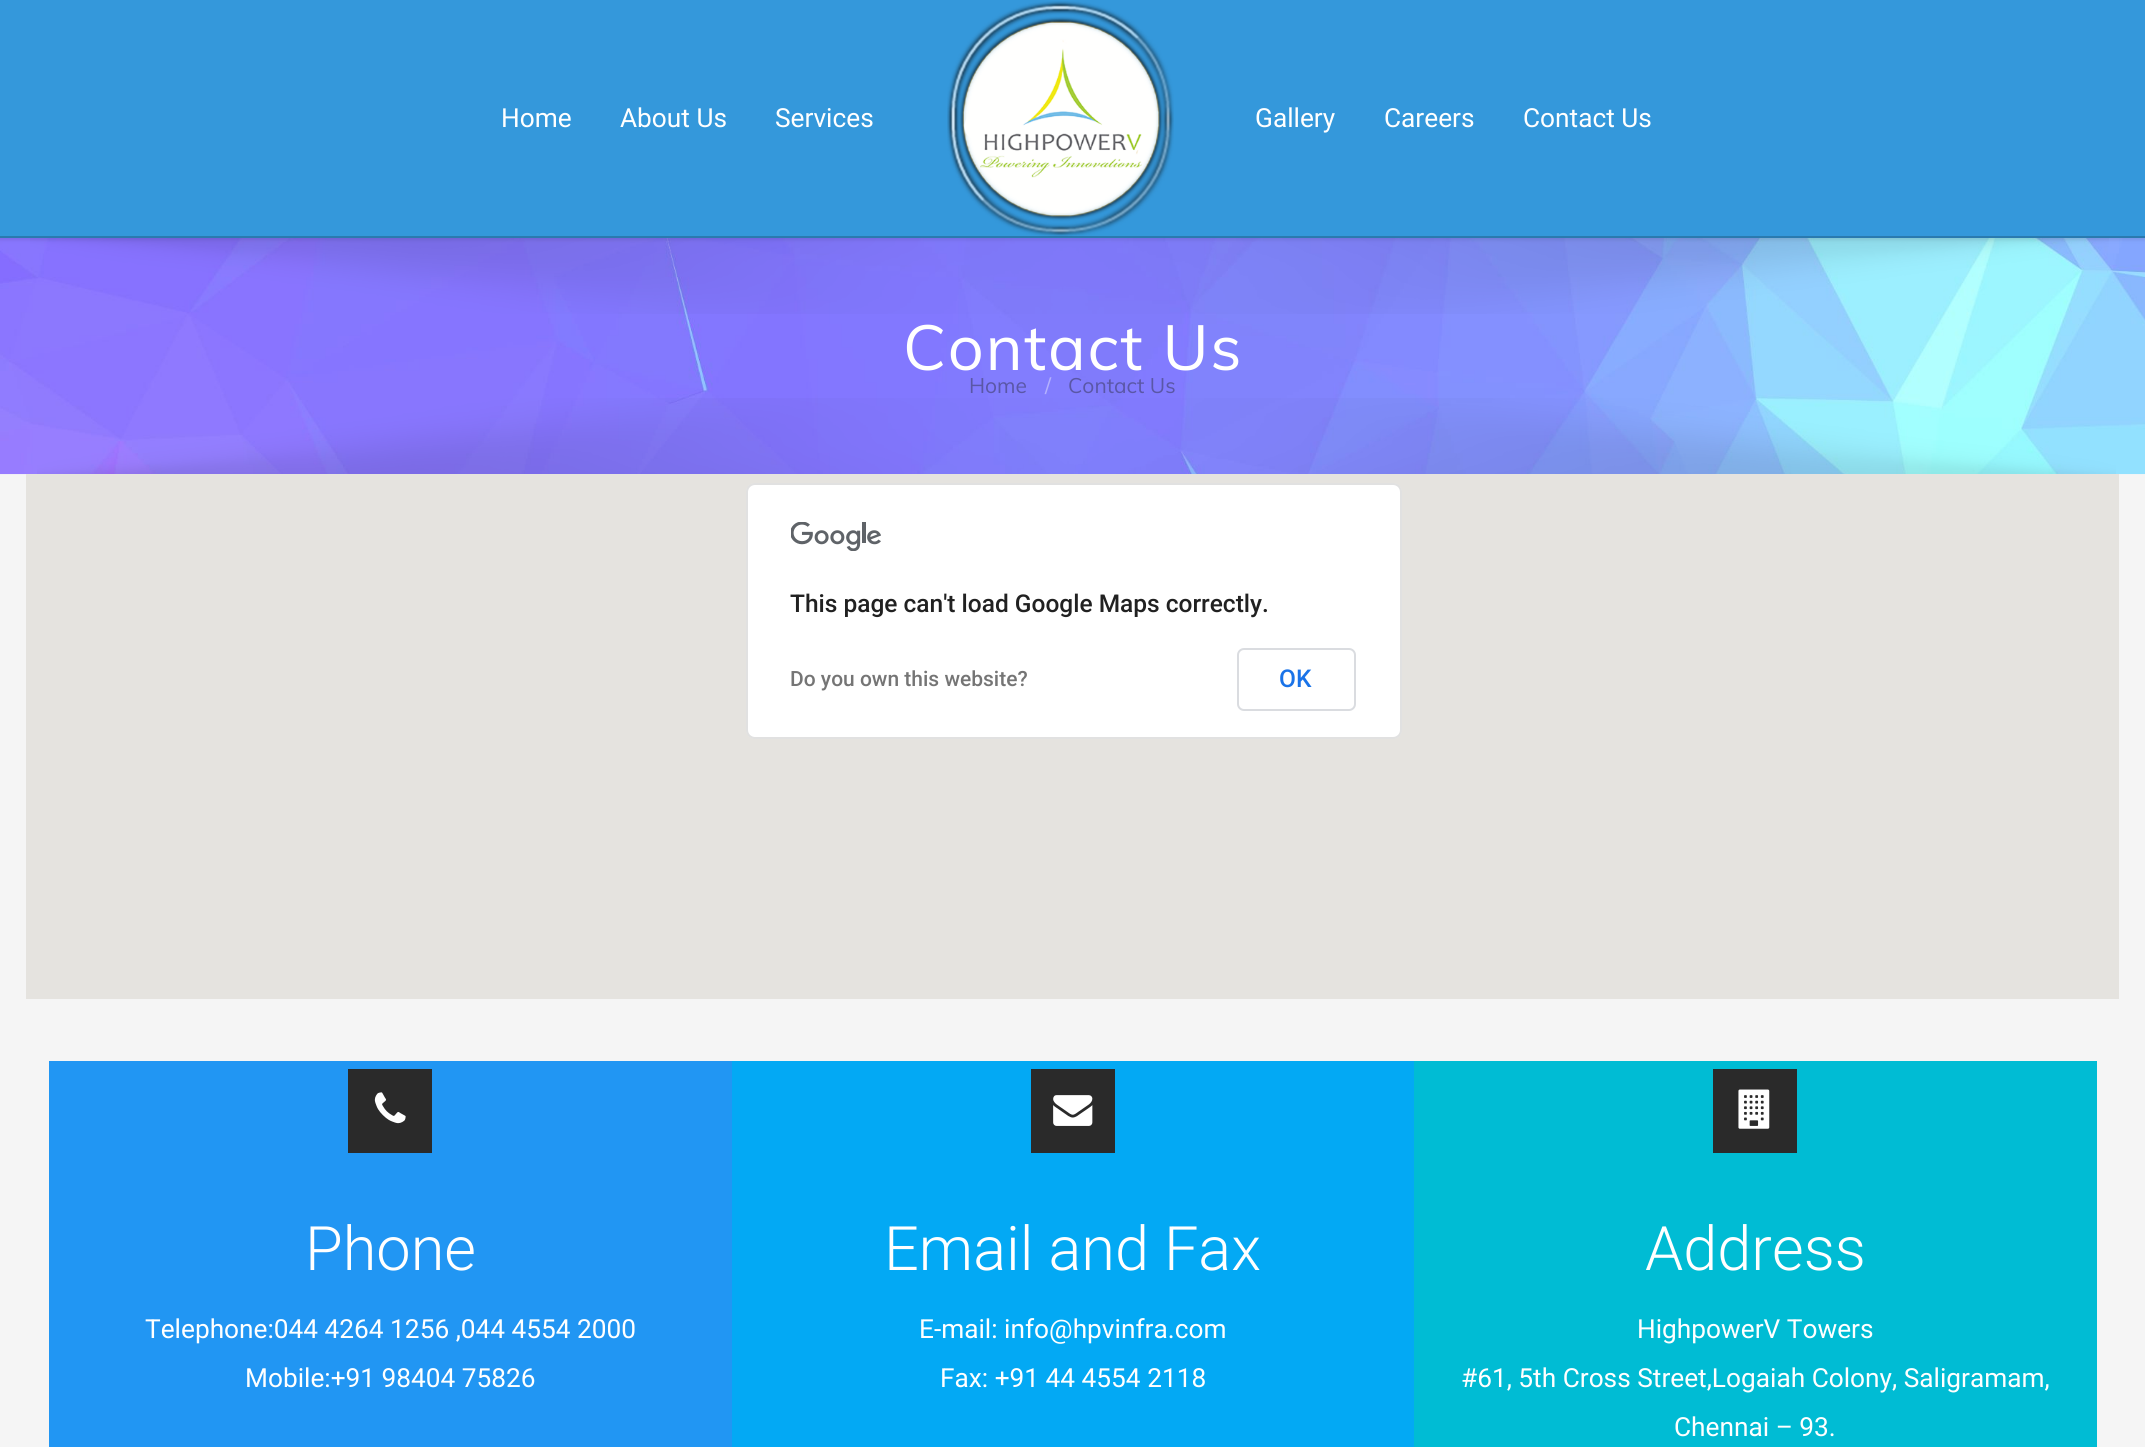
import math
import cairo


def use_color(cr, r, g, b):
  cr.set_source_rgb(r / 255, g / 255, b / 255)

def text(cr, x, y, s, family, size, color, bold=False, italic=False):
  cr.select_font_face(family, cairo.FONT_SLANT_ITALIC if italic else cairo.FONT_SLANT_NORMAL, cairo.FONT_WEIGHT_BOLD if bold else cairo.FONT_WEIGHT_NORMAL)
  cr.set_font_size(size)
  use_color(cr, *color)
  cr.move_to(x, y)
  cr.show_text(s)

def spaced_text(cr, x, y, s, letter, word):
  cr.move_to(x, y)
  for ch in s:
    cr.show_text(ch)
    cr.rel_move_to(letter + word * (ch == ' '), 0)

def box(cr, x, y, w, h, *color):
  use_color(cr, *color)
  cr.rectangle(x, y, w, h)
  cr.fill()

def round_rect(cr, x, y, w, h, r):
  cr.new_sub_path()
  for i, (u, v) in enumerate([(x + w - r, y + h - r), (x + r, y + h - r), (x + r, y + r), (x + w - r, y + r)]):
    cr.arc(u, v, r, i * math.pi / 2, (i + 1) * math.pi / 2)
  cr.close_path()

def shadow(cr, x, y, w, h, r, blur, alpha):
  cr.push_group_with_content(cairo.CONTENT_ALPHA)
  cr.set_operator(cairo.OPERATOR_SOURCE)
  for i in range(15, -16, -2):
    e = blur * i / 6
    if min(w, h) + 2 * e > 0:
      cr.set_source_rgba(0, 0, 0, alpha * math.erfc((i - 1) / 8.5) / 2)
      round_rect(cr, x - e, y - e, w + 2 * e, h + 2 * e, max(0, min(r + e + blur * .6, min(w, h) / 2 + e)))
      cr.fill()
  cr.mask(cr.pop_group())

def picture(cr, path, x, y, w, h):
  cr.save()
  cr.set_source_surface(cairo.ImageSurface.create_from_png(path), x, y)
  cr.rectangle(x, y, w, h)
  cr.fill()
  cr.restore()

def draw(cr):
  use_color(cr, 245, 245, 245)
  cr.paint()
  picture(cr, "img_02.png", 0, 238, 2145, 237)
  picture(cr, "img_03.png", 30, 238, 2079, 76)
  use_color(cr, 0, 0, 0)
  shadow(cr, -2, -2, 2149, 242, 0, 2, 0.1)
  box(cr, 0, 0, 2145, 236, 52, 152, 219)
  box(cr, 0, 236, 2145, 2, 42, 122, 175)
  picture(cr, "img_01.png", 947, 1, 227, 236)
  picture(cr, "img_04.png", 37, 398, 2079, 76)
  box(cr, 26, 474, 2093, 525, 229, 227, 223)
  use_color(cr, 255, 255, 255)
  round_rect(cr, 746, 483, 656, 256, 9)
  cr.fill()
  round_rect(cr, 747, 484, 654, 254, 8)
  cr.set_source_rgba(0, 0, 0, 0.12)
  cr.stroke()
  picture(cr, "img_05.png", 791, 522, 90, 29)
  round_rect(cr, 1238, 649, 117, 61, 6)
  use_color(cr, 218, 220, 224)
  cr.stroke()
  box(cr, 49, 1061, 683, 386, 33, 150, 243)
  box(cr, 348, 1069, 84, 84, 42, 42, 42)
  picture(cr, "img_06.png", 374, 1092, 32, 32)
  box(cr, 732, 1061, 682, 386, 3, 169, 244)
  box(cr, 1031, 1069, 84, 84, 42, 42, 42)
  picture(cr, "img_07.png", 1053, 1095, 40, 31)
  box(cr, 1414, 1061, 683, 386, 0, 188, 212)
  box(cr, 1713, 1069, 84, 84, 42, 42, 42)
  picture(cr, "img_08.png", 1738, 1089, 32, 40)
  text(cr, 501, 127, "Home", "Roboto", 26.25, (255, 255, 255))
  text(cr, 620, 127, "About Us", "Roboto", 26.25, (255, 255, 255))
  text(cr, 775, 127, "Services", "Roboto", 26.25, (255, 255, 255))
  text(cr, 1255, 127, "Gallery", "Roboto", 26.25, (255, 255, 255))
  text(cr, 1384, 127, "Careers", "Roboto", 26.25, (255, 255, 255))
  text(cr, 1523, 127, "Contact Us", "Roboto", 26.25, (255, 255, 255))
  cr.select_font_face("Muli")
  cr.set_font_size(63)
  spaced_text(cr, 903, 370, "Contact Us", 1.75, 0)
  text(cr, 969, 393, "Home", "Muli", 21, (90, 87, 166))
  text(cr, 1045, 393, "/", "Muli", 21, (180, 177, 254))
  text(cr, 1068, 393, "Contact Us", "Muli", 21, (90, 87, 166))
  text(cr, 790, 612, "This page can't load Google Maps correctly.", "Roboto Medium", 24.5, (33, 33, 33))
  text(cr, 790, 686, "Do you own this website?", "Roboto Medium", 21, (117, 117, 117))
  text(cr, 1279, 687, "OK", "Roboto Medium", 24.5, (26, 115, 232))
  text(cr, 305, 1270, "Phone", "Roboto Light", 61.25, (255, 255, 255))
  text(cr, 145, 1338, "Telephone:044 4264 1256 ,044 4554 2000", "Roboto", 26.25, (255, 255, 255))
  text(cr, 245, 1387, "Mobile:+91 98404 75826", "Roboto", 26.25, (255, 255, 255))
  text(cr, 884, 1270, "Email and Fax", "Roboto Light", 61.25, (255, 255, 255))
  text(cr, 919, 1338, "E-mail: info@hpvinfra.com", "Roboto", 26.25, (255, 255, 255))
  text(cr, 940, 1387, "Fax: +91 44 4554 2118", "Roboto", 26.25, (255, 255, 255))
  text(cr, 1645, 1270, "Address", "Roboto Light", 61.25, (255, 255, 255))
  text(cr, 1637, 1338, "HighpowerV Towers", "Roboto", 26.25, (255, 255, 255))
  text(cr, 1461, 1387, "#61, 5th Cross Street,Logaiah Colony, Saligramam,", "Roboto", 26.25, (255, 255, 255))
  text(cr, 1674, 1436, "Chennai – 93.", "Roboto", 26.25, (255, 255, 255))


surface = cairo.ImageSurface(cairo.FORMAT_RGB24, 2145, 1447)
cr = cairo.Context(surface)
options = cairo.FontOptions()
options.set_hint_metrics(cairo.HINT_METRICS_OFF)
options.set_hint_style(cairo.HINT_STYLE_NONE)
cr.set_font_options(options)
cr.set_miter_limit(4)
draw(cr)
surface.write_to_png("out.png")
